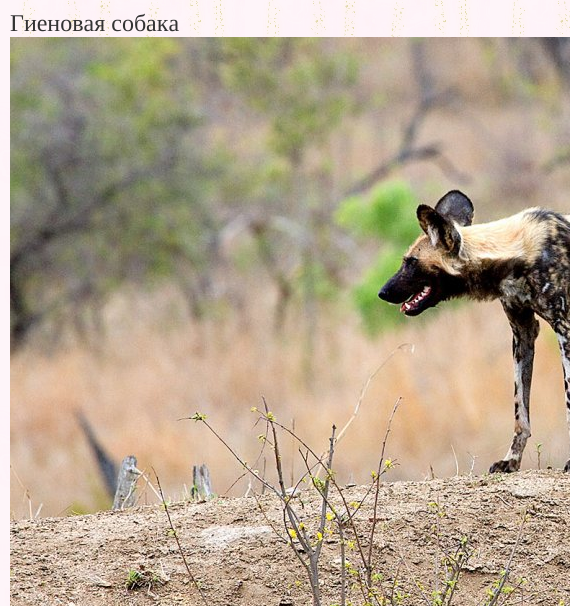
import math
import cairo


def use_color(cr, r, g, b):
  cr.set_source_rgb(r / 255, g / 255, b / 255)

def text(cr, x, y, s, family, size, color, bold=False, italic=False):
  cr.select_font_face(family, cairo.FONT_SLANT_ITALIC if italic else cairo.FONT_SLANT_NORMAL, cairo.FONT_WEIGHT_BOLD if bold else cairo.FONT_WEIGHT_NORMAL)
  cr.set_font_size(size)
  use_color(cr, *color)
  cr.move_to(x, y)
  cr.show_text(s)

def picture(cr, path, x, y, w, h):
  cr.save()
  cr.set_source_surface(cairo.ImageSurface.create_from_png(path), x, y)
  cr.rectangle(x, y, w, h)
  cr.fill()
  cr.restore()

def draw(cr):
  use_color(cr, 255, 255, 255)
  cr.paint()
  picture(cr, "img_01.png", 0, 0, 570, 606)
  picture(cr, "img_02.png", 10, 37, 560, 569)
  text(cr, 10, 31, "Гиеновая собака", "Liberation Serif", 24, (51, 51, 51))


surface = cairo.ImageSurface(cairo.FORMAT_RGB24, 570, 606)
cr = cairo.Context(surface)
options = cairo.FontOptions()
options.set_hint_metrics(cairo.HINT_METRICS_OFF)
options.set_hint_style(cairo.HINT_STYLE_NONE)
cr.set_font_options(options)
cr.set_miter_limit(4)
draw(cr)
surface.write_to_png("out.png")
